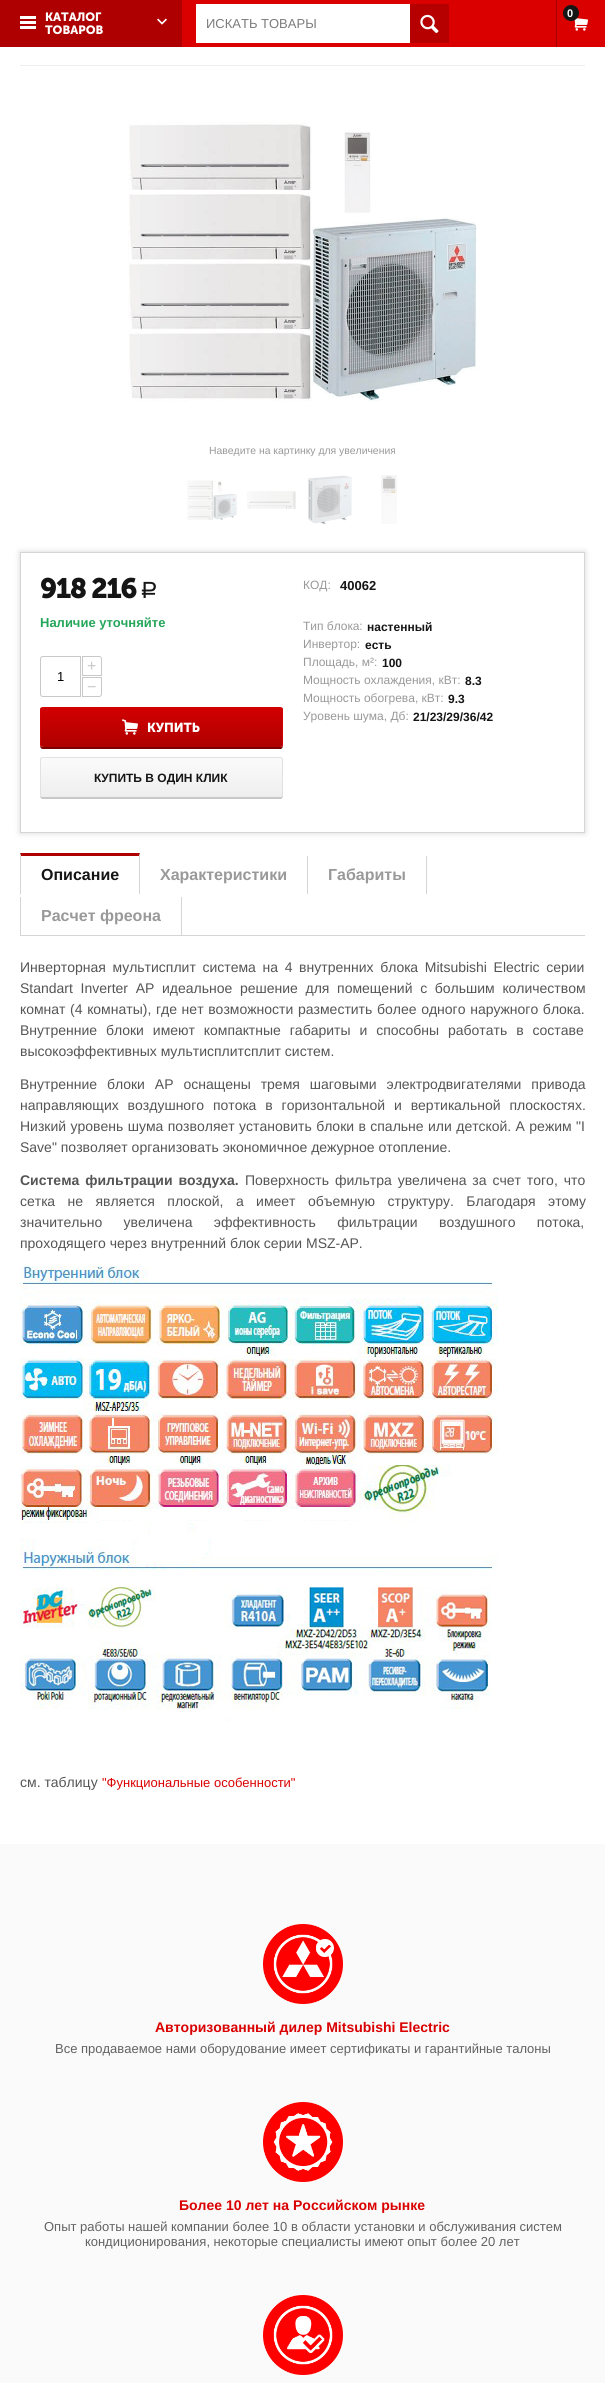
import math
import cairo


def use_color(cr, r, g, b):
  cr.set_source_rgb(r / 255, g / 255, b / 255)

def text(cr, x, y, s, family, size, color, bold=False, italic=False):
  cr.select_font_face(family, cairo.FONT_SLANT_ITALIC if italic else cairo.FONT_SLANT_NORMAL, cairo.FONT_WEIGHT_BOLD if bold else cairo.FONT_WEIGHT_NORMAL)
  cr.set_font_size(size)
  use_color(cr, *color)
  cr.move_to(x, y)
  cr.show_text(s)

def spaced_text(cr, x, y, s, letter, word):
  cr.move_to(x, y)
  for ch in s:
    cr.show_text(ch)
    cr.rel_move_to(letter + word * (ch == ' '), 0)

def box(cr, x, y, w, h, *color):
  use_color(cr, *color)
  cr.rectangle(x, y, w, h)
  cr.fill()

def round_rect(cr, x, y, w, h, r):
  cr.new_sub_path()
  for i, (u, v) in enumerate([(x + w - r, y + h - r), (x + r, y + h - r), (x + r, y + r), (x + w - r, y + r)]):
    cr.arc(u, v, r, i * math.pi / 2, (i + 1) * math.pi / 2)
  cr.close_path()

def shadow(cr, x, y, w, h, r, blur, alpha):
  cr.push_group_with_content(cairo.CONTENT_ALPHA)
  cr.set_operator(cairo.OPERATOR_SOURCE)
  for i in range(15, -16, -2):
    e = blur * i / 6
    if min(w, h) + 2 * e > 0:
      cr.set_source_rgba(0, 0, 0, alpha * math.erfc((i - 1) / 8.5) / 2)
      round_rect(cr, x - e, y - e, w + 2 * e, h + 2 * e, max(0, min(r + e + blur * .6, min(w, h) / 2 + e)))
      cr.fill()
  cr.mask(cr.pop_group())

def picture(cr, path, x, y, w, h):
  cr.save()
  cr.set_source_surface(cairo.ImageSurface.create_from_png(path), x, y)
  cr.rectangle(x, y, w, h)
  cr.fill()
  cr.restore()

def draw(cr):
  use_color(cr, 255, 255, 255)
  cr.paint()
  box(cr, 182, 0, 423, 47, 218, 0, 0)
  box(cr, 0, 0, 182, 47, 174, 0, 0)
  picture(cr, "img_01.png", 20, 16, 16, 13)
  picture(cr, "img_02.png", 157, 18, 10, 7)
  box(cr, 196, 4, 214, 39, 255, 255, 255)
  box(cr, 410, 4, 39, 39, 182, 0, 0)
  picture(cr, "img_03.png", 420, 14, 19, 19)
  box(cr, 556, 0, 1, 47, 167, 0, 0)
  picture(cr, "img_04.png", 574, 18, 14, 13)
  use_color(cr, 21, 21, 21)
  cr.arc(571, 13, 8, 0, 2 * math.pi)
  cr.fill()
  box(cr, 20, 65, 565, 1, 238, 238, 238)
  picture(cr, "img_05.png", 128, 122, 349, 280)
  picture(cr, "img_06.png", 187, 480, 50, 40)
  picture(cr, "img_07.png", 247, 491, 49, 18)
  picture(cr, "img_08.png", 308, 475, 44, 50)
  picture(cr, "img_09.png", 381, 475, 16, 49)
  cr.save()
  cr.set_fill_rule(cairo.FILL_RULE_EVEN_ODD)
  cr.new_path()
  cr.move_to(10, 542)
  cr.line_to(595, 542)
  cr.line_to(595, 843)
  cr.line_to(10, 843)
  cr.close_path()
  cr.move_to(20, 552)
  cr.line_to(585, 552)
  cr.line_to(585, 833)
  cr.line_to(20, 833)
  cr.close_path()
  cr.clip()
  use_color(cr, 213, 213, 213)
  shadow(cr, 20, 552, 565, 281, 0, 3, 1)
  cr.restore()
  cr.rectangle(20.5, 552.5, 564, 280)
  use_color(cr, 213, 213, 213)
  cr.set_line_width(1)
  cr.stroke()
  cr.new_path()
  cr.move_to(82.5, 656.5)
  cr.line_to(99, 656.5)
  cr.curve_to(100.5, 656.5, 101.5, 657.5, 101.5, 659)
  cr.line_to(101.5, 675.5)
  cr.line_to(82.5, 675.5)
  cr.close_path()
  use_color(cr, 200, 200, 200)
  cr.stroke()
  cr.new_path()
  cr.move_to(43, 656.5)
  cr.line_to(80.5, 656.5)
  cr.line_to(80.5, 696.5)
  cr.line_to(43, 696.5)
  cr.curve_to(41.5, 696.5, 40.5, 695.5, 40.5, 694)
  cr.line_to(40.5, 659)
  cr.curve_to(40.5, 657.5, 41.5, 656.5, 43, 656.5)
  cr.close_path()
  cr.stroke()
  cr.new_path()
  cr.move_to(82.5, 677.5)
  cr.line_to(101.5, 677.5)
  cr.line_to(101.5, 694)
  cr.curve_to(101.5, 695.5, 100.5, 696.5, 99, 696.5)
  cr.line_to(82.5, 696.5)
  cr.close_path()
  cr.stroke()
  use_color(cr, 123, 0, 0)
  cr.new_path()
  cr.move_to(40, 744)
  cr.curve_to(40, 746, 40, 749, 43, 749)
  cr.line_to(281, 749)
  cr.curve_to(283, 748, 283, 746, 283, 744)
  cr.curve_to(283, 746, 282, 747, 280, 747)
  cr.line_to(43, 747)
  cr.curve_to(41, 747, 40, 746, 40, 744)
  cr.close_path()
  cr.fill()
  cr.save()
  round_rect(cr, 40, 707, 243, 40, 3)
  cr.clip()
  gradient = cairo.LinearGradient(162, 708, 162, 747)
  gradient.add_color_stop_rgba(0, 0.824, 0, 0, 1)
  gradient.add_color_stop_rgba(1, 0.682, 0, 0, 1)
  cr.set_source(gradient)
  cr.new_path()
  cr.move_to(40, 708)
  cr.line_to(283, 708)
  cr.line_to(283, 744)
  cr.curve_to(283, 745.5, 281.5, 747, 280, 747)
  cr.line_to(43, 747)
  cr.curve_to(41.5, 747, 40, 745.5, 40, 744)
  cr.close_path()
  cr.fill()
  cr.restore()
  use_color(cr, 210, 0, 0)
  cr.set_fill_rule(cairo.FILL_RULE_EVEN_ODD)
  cr.new_path()
  cr.move_to(43, 707)
  cr.line_to(280, 707)
  cr.curve_to(282, 707, 283, 708, 283, 710)
  cr.line_to(283, 744)
  cr.curve_to(283, 746, 282, 747, 280, 747)
  cr.line_to(43, 747)
  cr.curve_to(41, 747, 40, 746, 40, 744)
  cr.line_to(40, 710)
  cr.curve_to(40, 708, 41, 707, 43, 707)
  cr.close_path()
  cr.move_to(43, 708)
  cr.line_to(280, 708)
  cr.curve_to(281, 708, 282, 709, 282, 710)
  cr.line_to(282, 744)
  cr.curve_to(282, 746, 281, 747, 280, 747)
  cr.line_to(43, 747)
  cr.curve_to(42, 747, 41, 746, 41, 744)
  cr.line_to(41, 710)
  cr.curve_to(41, 709, 42, 708, 43, 708)
  cr.close_path()
  cr.fill()
  picture(cr, "img_10.png", 122, 719, 16, 16)
  use_color(cr, 200, 200, 200)
  cr.set_fill_rule(cairo.FILL_RULE_WINDING)
  cr.new_path()
  cr.move_to(40, 794)
  cr.curve_to(40, 796, 40, 799, 43, 799)
  cr.line_to(281, 799)
  cr.curve_to(283, 798, 283, 796, 283, 794)
  cr.curve_to(283, 796, 282, 797, 280, 797)
  cr.line_to(43, 797)
  cr.curve_to(41, 797, 40, 796, 40, 794)
  cr.close_path()
  cr.fill()
  cr.save()
  round_rect(cr, 40, 757, 243, 40, 3)
  cr.clip()
  gradient = cairo.LinearGradient(162, 758, 162, 797)
  gradient.add_color_stop_rgba(0, 0.984, 0.984, 0.984, 1)
  gradient.add_color_stop_rgba(1, 0.933, 0.933, 0.933, 1)
  cr.set_source(gradient)
  cr.new_path()
  cr.move_to(40, 758)
  cr.line_to(283, 758)
  cr.line_to(283, 794)
  cr.curve_to(283, 795.5, 281.5, 797, 280, 797)
  cr.line_to(43, 797)
  cr.curve_to(41.5, 797, 40, 795.5, 40, 794)
  cr.close_path()
  cr.fill()
  cr.restore()
  use_color(cr, 225, 225, 225)
  cr.set_fill_rule(cairo.FILL_RULE_EVEN_ODD)
  cr.new_path()
  cr.move_to(43, 757)
  cr.line_to(280, 757)
  cr.curve_to(282, 757, 283, 758, 283, 760)
  cr.line_to(283, 794)
  cr.curve_to(283, 796, 282, 797, 280, 797)
  cr.line_to(43, 797)
  cr.curve_to(41, 797, 40, 796, 40, 794)
  cr.line_to(40, 760)
  cr.curve_to(40, 758, 41, 757, 43, 757)
  cr.close_path()
  cr.move_to(43, 758)
  cr.line_to(280, 758)
  cr.curve_to(281, 758, 282, 759, 282, 760)
  cr.line_to(282, 794)
  cr.curve_to(282, 796, 281, 797, 280, 797)
  cr.line_to(43, 797)
  cr.curve_to(42, 797, 41, 796, 41, 794)
  cr.line_to(41, 760)
  cr.curve_to(41, 759, 42, 758, 43, 758)
  cr.close_path()
  cr.fill()
  box(cr, 20, 935, 565, 1, 213, 213, 213)
  use_color(cr, 174, 0, 0)
  cr.set_fill_rule(cairo.FILL_RULE_WINDING)
  cr.new_path()
  cr.move_to(20, 853)
  cr.line_to(140, 853)
  cr.line_to(139, 856)
  cr.line_to(21, 856)
  cr.close_path()
  cr.fill()
  use_color(cr, 213, 213, 213)
  cr.new_path()
  cr.move_to(140, 853)
  cr.line_to(140, 895)
  cr.line_to(139, 894)
  cr.line_to(139, 856)
  cr.close_path()
  cr.fill()
  box(cr, 139, 894, 1, 1, 255, 255, 255)
  use_color(cr, 213, 213, 213)
  cr.new_path()
  cr.move_to(20, 895)
  cr.line_to(20, 853)
  cr.line_to(21, 856)
  cr.line_to(21, 894)
  cr.close_path()
  cr.fill()
  box(cr, 426, 856, 1, 38, 213, 213, 213)
  box(cr, 307, 856, 1, 38, 213, 213, 213)
  box(cr, 181, 897, 1, 38, 213, 213, 213)
  box(cr, 20, 897, 1, 38, 213, 213, 213)
  picture(cr, "img_11.png", 20, 1266, 478, 456)
  box(cr, 0, 1844, 605, 539, 250, 250, 250)
  picture(cr, "img_12.png", 263, 1924, 80, 80)
  picture(cr, "img_13.png", 263, 2102, 80, 80)
  picture(cr, "img_14.png", 263, 2295, 80, 80)
  text(cr, 45, 21, "КАТАЛОГ", "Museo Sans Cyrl", 12, (255, 255, 255), bold=True)
  text(cr, 45, 34, "ТОВАРОВ", "Museo Sans Cyrl", 12, (255, 255, 255), bold=True)
  text(cr, 206, 28, "ИСКАТЬ ТОВАРЫ", "Liberation Sans", 13, (123, 123, 123))
  text(cr, 567, 17, "0", "Liberation Sans", 11, (255, 255, 255), bold=True)
  text(cr, 209, 454, "Наведите на картинку для увеличения", "Liberation Sans", 10.4, (153, 153, 153))
  cr.select_font_face("Museo Sans Cyrl", cairo.FONT_SLANT_NORMAL, cairo.FONT_WEIGHT_BOLD)
  cr.set_font_size(28)
  use_color(cr, 21, 21, 21)
  spaced_text(cr, 40, 598, "918 216", -1.5, 0)
  cr.select_font_face("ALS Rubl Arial")
  cr.set_font_size(23)
  spaced_text(cr, 140, 598, "Р", -1.5, 0)
  text(cr, 40, 627, "Наличие уточняйте", "Liberation Sans", 13, (38, 166, 91), bold=True)
  text(cr, 87, 671, "+", "Liberation Sans", 16, (200, 200, 200))
  text(cr, 57, 681, "1", "Liberation Sans", 13, (0, 0, 0))
  text(cr, 87, 692, "−", "Liberation Sans", 16, (200, 200, 200))
  text(cr, 147, 732, "КУПИТЬ", "Museo Sans Cyrl", 13, (255, 255, 255), bold=True)
  text(cr, 94, 782, "КУПИТЬ В ОДИН КЛИК", "Liberation Sans", 12, (21, 21, 21), bold=True)
  text(cr, 303, 589, "КОД:", "Liberation Sans", 12, (153, 153, 153))
  text(cr, 340, 590, "40062", "Liberation Sans", 13, (21, 21, 21), bold=True)
  text(cr, 303, 630, "Тип блока:", "Liberation Sans", 12, (153, 153, 153))
  text(cr, 367, 631, "настенный", "Liberation Sans", 12, (21, 21, 21), bold=True)
  text(cr, 303, 648, "Инвертор:", "Liberation Sans", 12, (153, 153, 153))
  text(cr, 365, 649, "есть", "Liberation Sans", 12, (21, 21, 21), bold=True)
  text(cr, 303, 666, "Площадь, м²:", "Liberation Sans", 12, (153, 153, 153))
  text(cr, 382, 667, "100", "Liberation Sans", 12, (21, 21, 21), bold=True)
  text(cr, 303, 684, "Мощность охлаждения, кВт:", "Liberation Sans", 12, (153, 153, 153))
  text(cr, 465, 685, "8.3", "Liberation Sans", 12, (21, 21, 21), bold=True)
  text(cr, 303, 702, "Мощность обогрева, кВт:", "Liberation Sans", 12, (153, 153, 153))
  text(cr, 448, 703, "9.3", "Liberation Sans", 12, (21, 21, 21), bold=True)
  text(cr, 303, 720, "Уровень шума, Дб:", "Liberation Sans", 12, (153, 153, 153))
  text(cr, 413, 721, "21/23/29/36/42", "Liberation Sans", 12, (21, 21, 21), bold=True)
  text(cr, 41, 880, "Описание", "Liberation Sans", 16, (21, 21, 21), bold=True)
  text(cr, 160, 880, "Характеристики", "Liberation Sans", 16, (153, 153, 153), bold=True)
  text(cr, 328, 880, "Габариты", "Liberation Sans", 16, (153, 153, 153), bold=True)
  text(cr, 41, 921, "Расчет фреона", "Liberation Sans", 16, (153, 153, 153), bold=True)
  cr.select_font_face("Liberation Sans")
  cr.set_font_size(14)
  use_color(cr, 85, 85, 85)
  spaced_text(cr, 20, 972, "Инверторная мультисплит система на 4 внутренних блока Mitsubishi Electric серии", 0, 2.75)
  spaced_text(cr, 20, 993, "Standart Inverter AP идеальное решение для помещений с большим количеством", 0, 3.75)
  spaced_text(cr, 20, 1014, "комнат (4 комнаты), где нет возможности разместить более одного наружного блока.", 0, 0.75)
  spaced_text(cr, 20, 1035, "Внутренние блоки имеют компактные габариты и способны работать в составе", 0, 5)
  text(cr, 20, 1056, "высокоэффективных мультисплитсплит систем.", "Liberation Sans", 14, (85, 85, 85))
  spaced_text(cr, 20, 1089, "Внутренние блоки AP оснащены тремя шаговыми электродвигателями привода", 0, 6)
  spaced_text(cr, 20, 1110, "направляющих воздушного потока в горизонтальной и вертикальной плоскостях.", 0, 5)
  spaced_text(cr, 20, 1131, "Низкий уровень шума позволяет установить блоки в спальне или детской. А режим \"I", 0, 0.5)
  text(cr, 20, 1152, "Save\" позволяет организовать экономичное дежурное отопление.", "Liberation Sans", 14, (85, 85, 85))
  cr.select_font_face("Liberation Sans", cairo.FONT_SLANT_NORMAL, cairo.FONT_WEIGHT_BOLD)
  spaced_text(cr, 20, 1185, "Система фильтрации воздуха.", 0, 2)
  cr.select_font_face("Liberation Sans")
  spaced_text(cr, 245, 1185, "Поверхность фильтра увеличена за счет того, что", 0, 2)
  spaced_text(cr, 20, 1206, "сетка не является плоской, а имеет объемную структуру. Благодаря этому", 0, 8.5)
  spaced_text(cr, 20, 1227, "значительно увеличена эффективность фильтрации воздушного потока,", 0, 17.5)
  text(cr, 20, 1248, "проходящего через внутренний блок серии MSZ-AP.", "Liberation Sans", 14, (85, 85, 85))
  text(cr, 20, 1787, "см. таблицу", "Liberation Sans", 14, (85, 85, 85))
  text(cr, 102, 1787, "\"Функциональные особенности\"", "Liberation Sans", 13, (218, 0, 0))
  text(cr, 155, 2032, "Авторизованный дилер Mitsubishi Electric", "Liberation Sans", 14, (218, 0, 0), bold=True)
  text(cr, 55, 2053, "Все продаваемое нами оборудование имеет сертификаты и гарантийные талоны", "Liberation Sans", 13, (98, 98, 98))
  text(cr, 179, 2210, "Более 10 лет на Российском рынке", "Liberation Sans", 14, (218, 0, 0), bold=True)
  text(cr, 44, 2231, "Опыт работы нашей компании более 10 в области установки и обслуживания систем", "Liberation Sans", 13, (98, 98, 98))
  text(cr, 85, 2246, "кондиционирования, некоторые специалисты имеют опыт более 20 лет", "Liberation Sans", 13, (98, 98, 98))


surface = cairo.ImageSurface(cairo.FORMAT_RGB24, 605, 2383)
cr = cairo.Context(surface)
options = cairo.FontOptions()
options.set_hint_metrics(cairo.HINT_METRICS_OFF)
options.set_hint_style(cairo.HINT_STYLE_NONE)
cr.set_font_options(options)
cr.set_miter_limit(4)
draw(cr)
surface.write_to_png("out.png")
